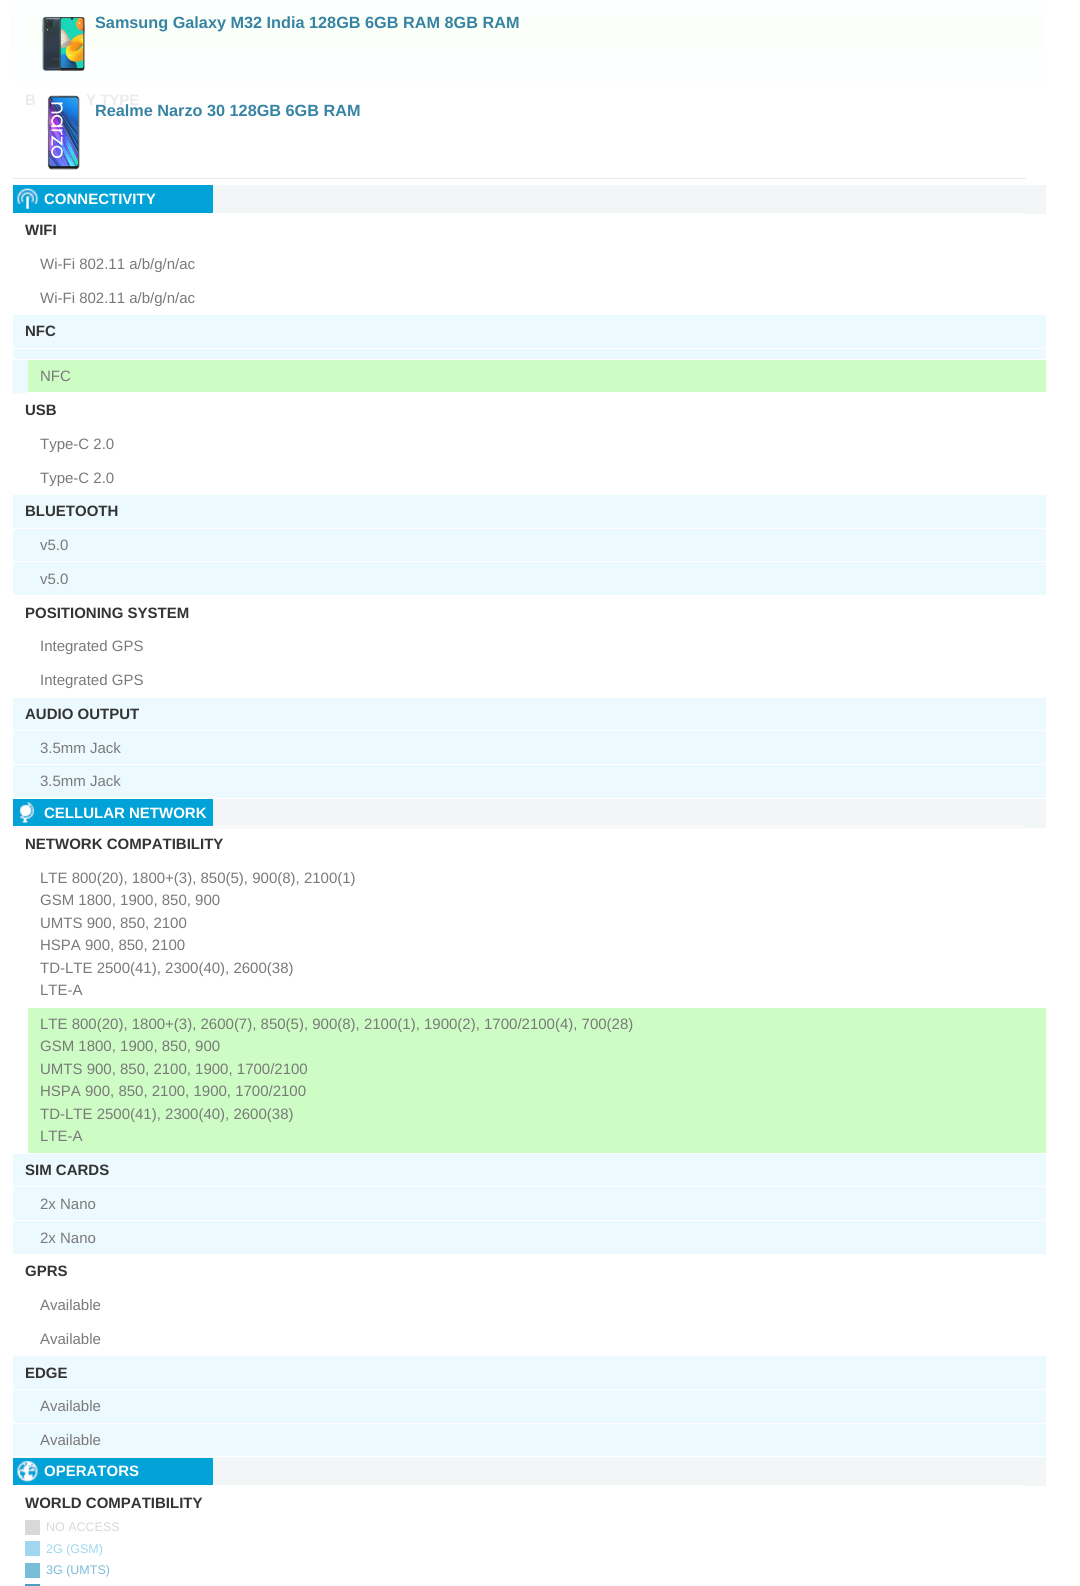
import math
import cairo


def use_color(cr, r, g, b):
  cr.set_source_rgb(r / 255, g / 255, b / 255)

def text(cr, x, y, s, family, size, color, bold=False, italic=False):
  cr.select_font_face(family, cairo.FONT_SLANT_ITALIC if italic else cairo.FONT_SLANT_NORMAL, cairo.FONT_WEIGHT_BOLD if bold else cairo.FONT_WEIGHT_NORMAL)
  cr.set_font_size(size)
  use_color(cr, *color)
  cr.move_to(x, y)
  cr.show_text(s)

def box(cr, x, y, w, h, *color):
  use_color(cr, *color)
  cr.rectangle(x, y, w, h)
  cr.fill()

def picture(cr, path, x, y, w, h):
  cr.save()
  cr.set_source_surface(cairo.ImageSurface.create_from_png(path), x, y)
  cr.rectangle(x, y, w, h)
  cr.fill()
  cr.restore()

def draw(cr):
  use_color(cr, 255, 255, 255)
  cr.paint()
  box(cr, 13, 0, 1033, 83, 236, 249, 254)
  box(cr, 13, 15, 1038, 1, 255, 255, 255)
  box(cr, 28, 16, 1018, 33, 205, 252, 197)
  use_color(cr, 255, 255, 255)
  cr.new_path()
  cr.move_to(1046, 50)
  cr.line_to(12, 50)
  cr.line_to(28, 49)
  cr.line_to(1046, 49)
  cr.close_path()
  cr.fill()
  use_color(cr, 236, 249, 254)
  cr.new_path()
  cr.move_to(12.5, 50)
  cr.line_to(12.5, 16)
  cr.line_to(27.5, 16)
  cr.line_to(27.5, 49)
  cr.close_path()
  cr.fill()
  box(cr, 13, 178, 1013, 1, 233, 233, 233)
  cr.set_source_rgba(1, 1, 1, 0.9)
  cr.rectangle(13, 0, 1033, 83)
  cr.fill()
  picture(cr, "img_01.png", 41, 16, 45, 55)
  picture(cr, "img_02.png", 41, 95, 44, 75)
  box(cr, 213, 185, 833, 29, 243, 246, 247)
  box(cr, 213, 213, 813, 1, 255, 255, 255)
  box(cr, 13, 185, 200, 28, 0, 162, 215)
  picture(cr, "img_03.png", 17, 188, 21, 21)
  box(cr, 13, 315, 1033, 79, 236, 249, 254)
  box(cr, 13, 348, 1038, 1, 255, 255, 255)
  box(cr, 13, 359, 1033, 1, 255, 255, 255)
  box(cr, 28, 360, 1018, 32, 205, 252, 197)
  use_color(cr, 255, 255, 255)
  cr.new_path()
  cr.move_to(1046, 394)
  cr.line_to(12, 394)
  cr.line_to(28, 392)
  cr.line_to(1046, 392)
  cr.close_path()
  cr.fill()
  use_color(cr, 236, 249, 254)
  cr.new_path()
  cr.move_to(12.5, 394)
  cr.line_to(12.5, 360)
  cr.line_to(27.5, 360)
  cr.line_to(27.5, 392.5)
  cr.close_path()
  cr.fill()
  box(cr, 13, 495, 1033, 100, 236, 249, 254)
  box(cr, 13, 528, 1038, 1, 255, 255, 255)
  box(cr, 13, 561, 1033, 1, 255, 255, 255)
  box(cr, 13, 698, 1033, 100, 236, 249, 254)
  box(cr, 13, 730, 1038, 1, 255, 255, 255)
  box(cr, 13, 764, 1033, 1, 255, 255, 255)
  box(cr, 13, 799, 1033, 29, 243, 246, 247)
  box(cr, 13, 826, 1013, 1, 255, 255, 255)
  box(cr, 13, 799, 200, 27, 0, 162, 215)
  picture(cr, "img_04.png", 19, 802, 15, 21)
  box(cr, 28, 1008, 1018, 145, 205, 252, 197)
  box(cr, 13, 1154, 1033, 100, 236, 249, 254)
  box(cr, 13, 1186, 1038, 1, 255, 255, 255)
  box(cr, 13, 1220, 1033, 1, 255, 255, 255)
  box(cr, 13, 1356, 1033, 102, 236, 249, 254)
  box(cr, 13, 1389, 1038, 1, 255, 255, 255)
  box(cr, 13, 1423, 1033, 1, 255, 255, 255)
  box(cr, 13, 1456, 1033, 1, 255, 255, 255)
  box(cr, 213, 1458, 833, 28, 243, 246, 247)
  box(cr, 213, 1485, 813, 1, 255, 255, 255)
  box(cr, 13, 1458, 200, 27, 0, 162, 215)
  picture(cr, "img_05.png", 17, 1461, 21, 21)
  box(cr, 25, 1520, 15, 15, 216, 216, 216)
  box(cr, 25, 1541, 15, 15, 160, 214, 240)
  box(cr, 25, 1563, 15, 15, 119, 188, 217)
  box(cr, 25, 1584, 15, 2, 72, 160, 198)
  text(cr, 25, 105, "B", "Liberation Sans", 15, (235, 235, 235), bold=True)
  text(cr, 86, 105, "Y TYPE", "Liberation Sans", 15, (235, 235, 235), bold=True)
  text(cr, 95, 28, "Samsung Galaxy M32 India 128GB 6GB RAM 8GB RAM", "Liberation Sans", 16.25, (55, 131, 164), bold=True)
  text(cr, 95, 116, "Realme Narzo 30 128GB 6GB RAM", "Liberation Sans", 16.25, (55, 131, 164), bold=True)
  text(cr, 44, 204, "CONNECTIVITY", "Liberation Sans", 15, (255, 255, 255), bold=True)
  text(cr, 25, 235, "WIFI", "Liberation Sans", 15, (52, 52, 52), bold=True)
  text(cr, 40, 269, "Wi-Fi 802.11 a/b/g/n/ac", "Liberation Sans", 15, (121, 121, 121))
  text(cr, 40, 303, "Wi-Fi 802.11 a/b/g/n/ac", "Liberation Sans", 15, (121, 121, 121))
  text(cr, 25, 336, "NFC", "Liberation Sans", 15, (52, 52, 52), bold=True)
  text(cr, 40, 381, "NFC", "Liberation Sans", 15, (121, 121, 121))
  text(cr, 25, 415, "USB", "Liberation Sans", 15, (52, 52, 52), bold=True)
  text(cr, 40, 449, "Type-C 2.0", "Liberation Sans", 15, (121, 121, 121))
  text(cr, 40, 483, "Type-C 2.0", "Liberation Sans", 15, (121, 121, 121))
  text(cr, 25, 516, "BLUETOOTH", "Liberation Sans", 15, (52, 52, 52), bold=True)
  text(cr, 40, 550, "v5.0", "Liberation Sans", 15, (121, 121, 121))
  text(cr, 40, 584, "v5.0", "Liberation Sans", 15, (121, 121, 121))
  text(cr, 25, 618, "POSITIONING SYSTEM", "Liberation Sans", 15, (52, 52, 52), bold=True)
  text(cr, 40, 651, "Integrated GPS", "Liberation Sans", 15, (121, 121, 121))
  text(cr, 40, 685, "Integrated GPS", "Liberation Sans", 15, (121, 121, 121))
  text(cr, 25, 719, "AUDIO OUTPUT", "Liberation Sans", 15, (52, 52, 52), bold=True)
  text(cr, 40, 753, "3.5mm Jack", "Liberation Sans", 15, (121, 121, 121))
  text(cr, 40, 786, "3.5mm Jack", "Liberation Sans", 15, (121, 121, 121))
  text(cr, 44, 818, "CELLULAR NETWORK", "Liberation Sans", 15, (255, 255, 255), bold=True)
  text(cr, 25, 849, "NETWORK COMPATIBILITY", "Liberation Sans", 15, (52, 52, 52), bold=True)
  text(cr, 40, 883, "LTE 800(20), 1800+(3), 850(5), 900(8), 2100(1)", "Liberation Sans", 15, (121, 121, 121))
  text(cr, 40, 905, "GSM 1800, 1900, 850, 900", "Liberation Sans", 15, (121, 121, 121))
  text(cr, 40, 928, "UMTS 900, 850, 2100", "Liberation Sans", 15, (121, 121, 121))
  text(cr, 40, 950, "HSPA 900, 850, 2100", "Liberation Sans", 15, (121, 121, 121))
  text(cr, 40, 973, "TD-LTE 2500(41), 2300(40), 2600(38)", "Liberation Sans", 15, (121, 121, 121))
  text(cr, 40, 995, "LTE-A", "Liberation Sans", 15, (121, 121, 121))
  text(cr, 40, 1029, "LTE 800(20), 1800+(3), 2600(7), 850(5), 900(8), 2100(1), 1900(2), 1700/2100(4), 700(28)", "Liberation Sans", 15, (121, 121, 121))
  text(cr, 40, 1051, "GSM 1800, 1900, 850, 900", "Liberation Sans", 15, (121, 121, 121))
  text(cr, 40, 1074, "UMTS 900, 850, 2100, 1900, 1700/2100", "Liberation Sans", 15, (121, 121, 121))
  text(cr, 40, 1096, "HSPA 900, 850, 2100, 1900, 1700/2100", "Liberation Sans", 15, (121, 121, 121))
  text(cr, 40, 1119, "TD-LTE 2500(41), 2300(40), 2600(38)", "Liberation Sans", 15, (121, 121, 121))
  text(cr, 40, 1141, "LTE-A", "Liberation Sans", 15, (121, 121, 121))
  text(cr, 25, 1175, "SIM CARDS", "Liberation Sans", 15, (52, 52, 52), bold=True)
  text(cr, 40, 1209, "2x Nano", "Liberation Sans", 15, (121, 121, 121))
  text(cr, 40, 1243, "2x Nano", "Liberation Sans", 15, (121, 121, 121))
  text(cr, 25, 1276, "GPRS", "Liberation Sans", 15, (52, 52, 52), bold=True)
  text(cr, 40, 1310, "Available", "Liberation Sans", 15, (121, 121, 121))
  text(cr, 40, 1344, "Available", "Liberation Sans", 15, (121, 121, 121))
  text(cr, 25, 1378, "EDGE", "Liberation Sans", 15, (52, 52, 52), bold=True)
  text(cr, 40, 1411, "Available", "Liberation Sans", 15, (121, 121, 121))
  text(cr, 40, 1445, "Available", "Liberation Sans", 15, (121, 121, 121))
  text(cr, 44, 1476, "OPERATORS", "Liberation Sans", 15, (255, 255, 255), bold=True)
  text(cr, 25, 1508, "WORLD COMPATIBILITY", "Liberation Sans", 15, (52, 52, 52), bold=True)
  text(cr, 46, 1531, "NO ACCESS", "Liberation Sans", 12.5, (216, 216, 216))
  text(cr, 46, 1553, "2G (GSM)", "Liberation Sans", 12.5, (160, 214, 240))
  text(cr, 46, 1574, "3G (UMTS)", "Liberation Sans", 12.5, (119, 188, 217))


surface = cairo.ImageSurface(cairo.FORMAT_RGB24, 1080, 1586)
cr = cairo.Context(surface)
options = cairo.FontOptions()
options.set_hint_metrics(cairo.HINT_METRICS_OFF)
options.set_hint_style(cairo.HINT_STYLE_NONE)
cr.set_font_options(options)
cr.set_miter_limit(4)
draw(cr)
surface.write_to_png("out.png")
